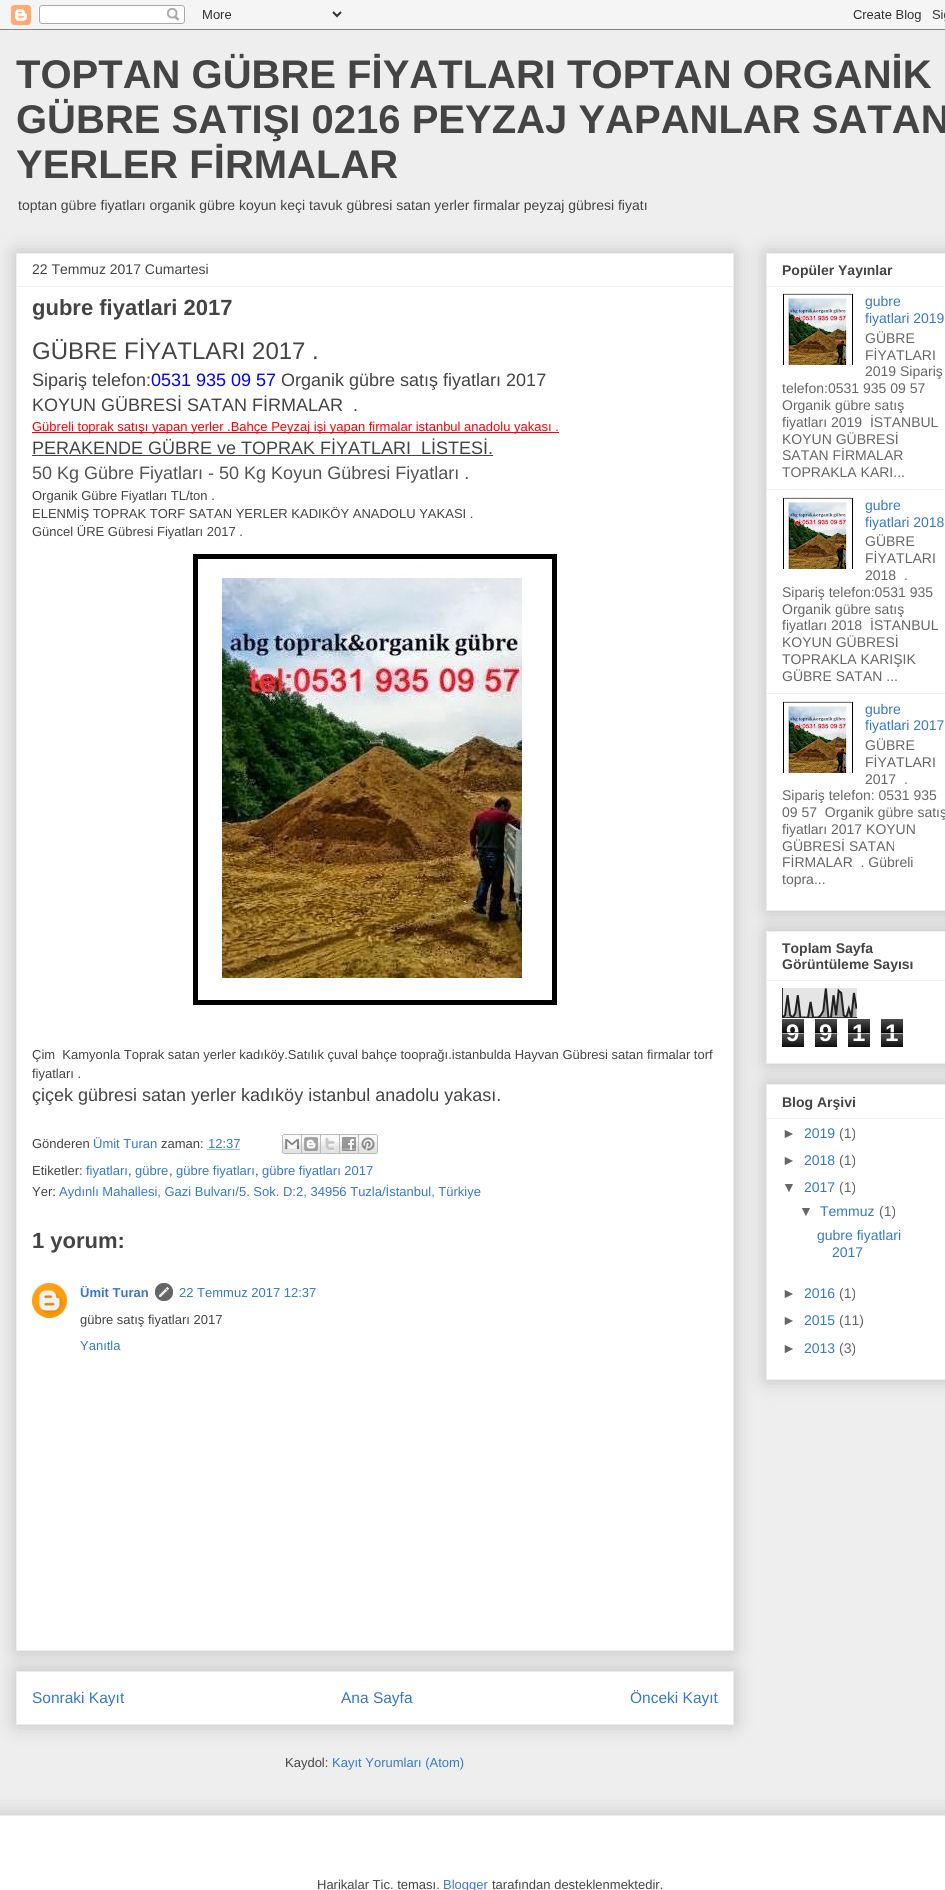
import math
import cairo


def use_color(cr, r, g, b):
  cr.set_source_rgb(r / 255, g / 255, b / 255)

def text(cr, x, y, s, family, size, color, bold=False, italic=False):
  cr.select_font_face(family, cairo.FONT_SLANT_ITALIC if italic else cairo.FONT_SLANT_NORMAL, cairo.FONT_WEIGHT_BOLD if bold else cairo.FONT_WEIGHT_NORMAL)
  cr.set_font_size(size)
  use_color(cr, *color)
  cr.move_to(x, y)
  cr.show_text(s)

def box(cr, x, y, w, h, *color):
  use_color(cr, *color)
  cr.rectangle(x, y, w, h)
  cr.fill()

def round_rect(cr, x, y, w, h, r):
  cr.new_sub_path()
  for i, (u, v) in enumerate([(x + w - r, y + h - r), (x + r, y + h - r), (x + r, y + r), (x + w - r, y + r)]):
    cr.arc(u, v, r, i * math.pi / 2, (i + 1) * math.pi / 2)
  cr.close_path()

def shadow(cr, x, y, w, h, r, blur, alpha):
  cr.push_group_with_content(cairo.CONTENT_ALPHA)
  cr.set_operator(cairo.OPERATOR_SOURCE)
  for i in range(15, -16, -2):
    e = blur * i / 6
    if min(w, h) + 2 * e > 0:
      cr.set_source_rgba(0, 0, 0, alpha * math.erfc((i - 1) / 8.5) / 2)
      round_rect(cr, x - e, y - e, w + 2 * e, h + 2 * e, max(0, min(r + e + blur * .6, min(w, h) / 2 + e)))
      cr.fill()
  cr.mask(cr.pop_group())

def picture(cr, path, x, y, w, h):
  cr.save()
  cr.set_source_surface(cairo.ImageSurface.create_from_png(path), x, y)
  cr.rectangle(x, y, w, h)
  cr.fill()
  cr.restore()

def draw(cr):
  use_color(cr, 238, 238, 238)
  cr.paint()
  picture(cr, "img_01.png", 0, 0, 945, 30)
  use_color(cr, 0, 0, 0)
  shadow(cr, 16, 1671, 718, 54, 0, 10, 0.2)
  use_color(cr, 255, 255, 255)
  cr.rectangle(16.5, 1671.5, 717, 53)
  cr.fill_preserve()
  use_color(cr, 238, 238, 238)
  cr.set_line_width(1)
  cr.stroke()
  use_color(cr, 0, 0, 0)
  shadow(cr, 16, 253, 718, 1398, 0, 10, 0.2)
  use_color(cr, 255, 255, 255)
  cr.rectangle(16.5, 253.5, 717, 1397)
  cr.fill_preserve()
  use_color(cr, 238, 238, 238)
  cr.stroke()
  box(cr, 17, 286, 716, 1, 238, 238, 238)
  box(cr, 32, 432, 527, 1, 255, 0, 0)
  box(cr, 32, 455, 461, 1, 68, 68, 68)
  picture(cr, "img_02.png", 188, 553, 374, 452)
  cr.new_path()
  cr.move_to(207.5, 1149.5)
  cr.line_to(240, 1149.5)
  use_color(cr, 55, 120, 205)
  cr.set_dash([1, 1])
  cr.stroke()
  picture(cr, "img_03.png", 282, 1134, 20, 20)
  picture(cr, "img_04.png", 302, 1134, 19, 20)
  picture(cr, "img_05.png", 321, 1134, 19, 20)
  picture(cr, "img_06.png", 340, 1134, 19, 20)
  picture(cr, "img_07.png", 359, 1134, 19, 20)
  picture(cr, "img_08.png", 32, 1283, 35, 35)
  picture(cr, "img_09.png", 155, 1283, 18, 18)
  use_color(cr, 0, 0, 0)
  shadow(cr, 766, 253, 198, 658, 0, 10, 0.2)
  use_color(cr, 255, 255, 255)
  cr.rectangle(766.5, 253.5, 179, 657)
  cr.fill_preserve()
  use_color(cr, 238, 238, 238)
  cr.set_dash([])
  cr.stroke()
  box(cr, 767, 286, 178, 1, 238, 238, 238)
  picture(cr, "img_10.png", 782, 293, 72, 72)
  box(cr, 767, 489, 178, 1, 238, 238, 238)
  picture(cr, "img_10.png", 782, 497, 72, 72)
  box(cr, 767, 693, 178, 1, 238, 238, 238)
  picture(cr, "img_10.png", 782, 701, 72, 72)
  use_color(cr, 0, 0, 0)
  shadow(cr, 766, 931, 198, 133, 0, 10, 0.2)
  use_color(cr, 255, 255, 255)
  cr.rectangle(766.5, 931.5, 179, 132)
  cr.fill_preserve()
  use_color(cr, 238, 238, 238)
  cr.stroke()
  box(cr, 767, 980, 178, 1, 238, 238, 238)
  picture(cr, "img_11.png", 782, 988, 75, 30)
  picture(cr, "img_12.png", 782, 1019, 22, 28)
  picture(cr, "img_12.png", 815, 1019, 22, 28)
  picture(cr, "img_12.png", 848, 1019, 22, 28)
  picture(cr, "img_12.png", 881, 1019, 22, 28)
  use_color(cr, 0, 0, 0)
  shadow(cr, 766, 1084, 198, 296, 0, 10, 0.2)
  use_color(cr, 255, 255, 255)
  cr.rectangle(766.5, 1084.5, 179, 295)
  cr.fill_preserve()
  use_color(cr, 238, 238, 238)
  cr.stroke()
  box(cr, 767, 1118, 178, 1, 238, 238, 238)
  use_color(cr, 0, 0, 0)
  shadow(cr, -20, 1815, 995, 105, 0, 10, 0.2)
  box(cr, 0, 1816, 945, 74, 255, 255, 255)
  box(cr, 0, 1815, 945, 1, 238, 238, 238)
  text(cr, 16, 88, "TOPTAN GÜBRE FİYATLARI TOPTAN ORGANİK", "Liberation Sans", 40, (68, 68, 68), bold=True)
  text(cr, 16, 133, "GÜBRE SATIŞI 0216 PEYZAJ YAPANLAR SATAN", "Liberation Sans", 40, (68, 68, 68), bold=True)
  text(cr, 16, 178, "YERLER FİRMALAR", "Liberation Sans", 40, (68, 68, 68), bold=True)
  text(cr, 18, 210, "toptan gübre fiyatları organik gübre koyun keçi tavuk gübresi satan yerler firmalar peyzaj gübresi fiyatı", "Liberation Sans", 14, (68, 68, 68))
  text(cr, 32, 274, "22 Temmuz 2017 Cumartesi", "Liberation Sans", 14, (68, 68, 68))
  text(cr, 32, 315, "gubre fiyatlari 2017", "Liberation Sans", 22, (68, 68, 68), bold=True)
  text(cr, 32, 359, "GÜBRE FİYATLARI 2017 .", "Liberation Sans", 24, (68, 68, 68))
  text(cr, 32, 386, "Sipariş telefon:", "Liberation Sans", 18, (68, 68, 68))
  text(cr, 151, 386, "0531 935 09 57", "Liberation Sans", 18, (0, 0, 255))
  text(cr, 281, 386, "Organik gübre satış fiyatları 2017", "Liberation Sans", 18, (68, 68, 68))
  text(cr, 32, 411, "KOYUN GÜBRESİ SATAN FİRMALAR  .", "Liberation Sans", 18, (68, 68, 68))
  text(cr, 32, 431, "Gübreli toprak satışı yapan yerler .Bahçe Peyzaj işi yapan firmalar istanbul anadolu yakası .", "Liberation Sans", 13, (255, 0, 0))
  text(cr, 32, 454, "PERAKENDE GÜBRE ve TOPRAK FİYATLARI  LİSTESİ.", "Liberation Sans", 18, (68, 68, 68))
  text(cr, 32, 479, "50 Kg Gübre Fiyatları - 50 Kg Koyun Gübresi Fiyatları .", "Liberation Sans", 18, (84, 84, 84))
  text(cr, 32, 500, "Organik Gübre Fiyatları TL/ton .", "Liberation Sans", 13, (68, 68, 68))
  text(cr, 32, 518, "ELENMİŞ TOPRAK TORF SATAN YERLER KADIKÖY ANADOLU YAKASI .", "Liberation Sans", 13, (68, 68, 68))
  text(cr, 32, 536, "Güncel ÜRE Gübresi Fiyatları 2017 .", "Liberation Sans", 13, (68, 68, 68))
  text(cr, 32, 1059, "Çim  Kamyonla Toprak satan yerler kadıköy.Satılık çuval bahçe tooprağı.istanbulda Hayvan Gübresi satan firmalar torf", "Liberation Sans", 13, (68, 68, 68))
  text(cr, 32, 1078, "fiyatları .", "Liberation Sans", 13, (68, 68, 68))
  text(cr, 32, 1101, "çiçek gübresi satan yerler kadıköy istanbul anadolu yakası.", "Liberation Sans", 18, (68, 68, 68))
  text(cr, 32, 1148, "Gönderen", "Liberation Sans", 13, (68, 68, 68))
  text(cr, 93, 1148, "Ümit Turan", "Liberation Sans", 13, (55, 120, 205))
  text(cr, 161, 1148, "zaman:", "Liberation Sans", 13, (68, 68, 68))
  text(cr, 208, 1148, "12:37", "Liberation Sans", 13, (55, 120, 205))
  text(cr, 32, 1175, "Etiketler:", "Liberation Sans", 13, (68, 68, 68))
  text(cr, 86, 1175, "fiyatları", "Liberation Sans", 13, (55, 120, 205))
  text(cr, 128, 1175, ",", "Liberation Sans", 13, (68, 68, 68))
  text(cr, 135, 1175, "gübre", "Liberation Sans", 13, (55, 120, 205))
  text(cr, 169, 1175, ",", "Liberation Sans", 13, (68, 68, 68))
  text(cr, 176, 1175, "gübre fiyatları", "Liberation Sans", 13, (55, 120, 205))
  text(cr, 255, 1175, ",", "Liberation Sans", 13, (68, 68, 68))
  text(cr, 262, 1175, "gübre fiyatları 2017", "Liberation Sans", 13, (55, 120, 205))
  text(cr, 32, 1196, "Yer:", "Liberation Sans", 13, (68, 68, 68))
  text(cr, 59, 1196, "Aydınlı Mahallesi, Gazi Bulvarı/5. Sok. D:2, 34956 Tuzla/İstanbul, Türkiye", "Liberation Sans", 13, (55, 120, 205))
  text(cr, 32, 1248, "1 yorum:", "Liberation Sans", 22, (68, 68, 68), bold=True)
  text(cr, 80, 1297, "Ümit Turan", "Liberation Sans", 13, (55, 120, 205), bold=True)
  text(cr, 179, 1297, "22 Temmuz 2017 12:37", "Liberation Sans", 13, (55, 120, 205))
  text(cr, 80, 1324, "gübre satış fiyatları 2017", "Liberation Sans", 13, (68, 68, 68))
  text(cr, 80, 1350, "Yanıtla", "Liberation Sans", 13, (55, 120, 205))
  text(cr, 32, 1703, "Sonraki Kayıt", "Liberation Sans", 15.5, (55, 120, 205))
  text(cr, 341, 1703, "Ana Sayfa", "Liberation Sans", 15.5, (55, 120, 205))
  text(cr, 630, 1703, "Önceki Kayıt", "Liberation Sans", 15.5, (55, 120, 205))
  text(cr, 285, 1767, "Kaydol:", "Liberation Sans", 13, (68, 68, 68))
  text(cr, 332, 1767, "Kayıt Yorumları (Atom)", "Liberation Sans", 13, (55, 120, 205))
  text(cr, 782, 275, "Popüler Yayınlar", "Liberation Sans", 14, (68, 68, 68), bold=True)
  text(cr, 865, 306, "gubre", "Liberation Sans", 14, (55, 120, 205))
  text(cr, 865, 323, "fiyatlari 2019", "Liberation Sans", 14, (55, 120, 205))
  text(cr, 865, 343, "GÜBRE", "Liberation Sans", 14, (102, 102, 102))
  text(cr, 865, 360, "FİYATLARI", "Liberation Sans", 14, (102, 102, 102))
  text(cr, 865, 376, "2019 Sipariş", "Liberation Sans", 14, (102, 102, 102))
  text(cr, 782, 393, "telefon:0531 935 09 57", "Liberation Sans", 14, (102, 102, 102))
  text(cr, 782, 410, "Organik gübre satış", "Liberation Sans", 14, (102, 102, 102))
  text(cr, 782, 427, "fiyatları 2019  İSTANBUL", "Liberation Sans", 14, (102, 102, 102))
  text(cr, 782, 444, "KOYUN GÜBRESİ", "Liberation Sans", 14, (102, 102, 102))
  text(cr, 782, 460, "SATAN FİRMALAR", "Liberation Sans", 14, (102, 102, 102))
  text(cr, 782, 477, "TOPRAKLA KARI...", "Liberation Sans", 14, (102, 102, 102))
  text(cr, 865, 510, "gubre", "Liberation Sans", 14, (55, 120, 205))
  text(cr, 865, 527, "fiyatlari 2018", "Liberation Sans", 14, (55, 120, 205))
  text(cr, 865, 546, "GÜBRE", "Liberation Sans", 14, (102, 102, 102))
  text(cr, 865, 563, "FİYATLARI", "Liberation Sans", 14, (102, 102, 102))
  text(cr, 865, 580, "2018  .", "Liberation Sans", 14, (102, 102, 102))
  text(cr, 782, 597, "Sipariş telefon:0531 935", "Liberation Sans", 14, (102, 102, 102))
  text(cr, 782, 614, "Organik gübre satış", "Liberation Sans", 14, (102, 102, 102))
  text(cr, 782, 630, "fiyatları 2018", "Liberation Sans", 14, (102, 102, 102))
  text(cr, 870, 630, "İSTANBUL", "Liberation Sans", 14, (102, 102, 102))
  text(cr, 782, 647, "KOYUN GÜBRESİ", "Liberation Sans", 14, (102, 102, 102))
  text(cr, 782, 664, "TOPRAKLA KARIŞIK", "Liberation Sans", 14, (102, 102, 102))
  text(cr, 782, 681, "GÜBRE SATAN ...", "Liberation Sans", 14, (102, 102, 102))
  text(cr, 865, 714, "gubre", "Liberation Sans", 14, (55, 120, 205))
  text(cr, 865, 730, "fiyatlari 2017", "Liberation Sans", 14, (55, 120, 205))
  text(cr, 865, 750, "GÜBRE", "Liberation Sans", 14, (102, 102, 102))
  text(cr, 865, 767, "FİYATLARI", "Liberation Sans", 14, (102, 102, 102))
  text(cr, 865, 784, "2017  .", "Liberation Sans", 14, (102, 102, 102))
  text(cr, 782, 800, "Sipariş telefon: 0531 935", "Liberation Sans", 14, (102, 102, 102))
  text(cr, 782, 817, "09 57  Organik gübre satış", "Liberation Sans", 14, (102, 102, 102))
  text(cr, 782, 834, "fiyatları 2017 KOYUN", "Liberation Sans", 14, (102, 102, 102))
  text(cr, 782, 851, "GÜBRESİ SATAN", "Liberation Sans", 14, (102, 102, 102))
  text(cr, 782, 867, "FİRMALAR  . Gübreli", "Liberation Sans", 14, (102, 102, 102))
  text(cr, 782, 884, "topra...", "Liberation Sans", 14, (102, 102, 102))
  text(cr, 782, 953, "Toplam Sayfa", "Liberation Sans", 14, (68, 68, 68), bold=True)
  text(cr, 782, 969, "Görüntüleme Sayısı", "Liberation Sans", 14, (68, 68, 68), bold=True)
  text(cr, 786, 1041, "9", "Liberation Sans", 24, (255, 255, 255), bold=True)
  cr.set_source_rgba(0, 0, 0, 0.65)
  cr.rectangle(782, 1032, 22, 1)
  cr.fill()
  cr.set_source_rgba(1, 1, 1, 0.65)
  cr.rectangle(782, 1033, 22, 1)
  cr.fill()
  text(cr, 819, 1041, "9", "Liberation Sans", 24, (255, 255, 255), bold=True)
  cr.set_source_rgba(0, 0, 0, 0.65)
  cr.rectangle(815, 1032, 22, 1)
  cr.fill()
  cr.set_source_rgba(1, 1, 1, 0.65)
  cr.rectangle(815, 1033, 22, 1)
  cr.fill()
  text(cr, 852, 1041, "1", "Liberation Sans", 24, (255, 255, 255), bold=True)
  cr.set_source_rgba(0, 0, 0, 0.65)
  cr.rectangle(848, 1032, 22, 1)
  cr.fill()
  cr.set_source_rgba(1, 1, 1, 0.65)
  cr.rectangle(848, 1033, 22, 1)
  cr.fill()
  text(cr, 885, 1041, "1", "Liberation Sans", 24, (255, 255, 255), bold=True)
  cr.set_source_rgba(0, 0, 0, 0.65)
  cr.rectangle(881, 1032, 22, 1)
  cr.fill()
  cr.set_source_rgba(1, 1, 1, 0.65)
  cr.rectangle(881, 1033, 22, 1)
  cr.fill()
  text(cr, 782, 1107, "Blog Arşivi", "Liberation Sans", 14, (68, 68, 68), bold=True)
  text(cr, 782, 1138, "►", "Liberation Sans", 14, (102, 102, 102))
  text(cr, 804, 1138, "2019", "Liberation Sans", 14, (55, 120, 205))
  text(cr, 839, 1138, "(1)", "Liberation Sans", 14, (102, 102, 102))
  text(cr, 782, 1165, "►", "Liberation Sans", 14, (102, 102, 102))
  text(cr, 804, 1165, "2018", "Liberation Sans", 14, (55, 120, 205))
  text(cr, 839, 1165, "(1)", "Liberation Sans", 14, (102, 102, 102))
  text(cr, 782, 1192, "▼", "Liberation Sans", 14, (102, 102, 102))
  text(cr, 804, 1192, "2017", "Liberation Sans", 14, (55, 120, 205))
  text(cr, 839, 1192, "(1)", "Liberation Sans", 14, (102, 102, 102))
  text(cr, 799, 1216, "▼", "Liberation Sans", 14, (102, 102, 102))
  text(cr, 820, 1216, "Temmuz", "Liberation Sans", 14, (55, 120, 205))
  text(cr, 879, 1216, "(1)", "Liberation Sans", 14, (102, 102, 102))
  text(cr, 817, 1240, "gubre fiyatlari", "Liberation Sans", 14, (55, 120, 205))
  text(cr, 832, 1257, "2017", "Liberation Sans", 14, (55, 120, 205))
  text(cr, 782, 1298, "►", "Liberation Sans", 14, (102, 102, 102))
  text(cr, 804, 1298, "2016", "Liberation Sans", 14, (55, 120, 205))
  text(cr, 839, 1298, "(1)", "Liberation Sans", 14, (102, 102, 102))
  text(cr, 782, 1325, "►", "Liberation Sans", 14, (102, 102, 102))
  text(cr, 804, 1325, "2015", "Liberation Sans", 14, (55, 120, 205))
  text(cr, 839, 1325, "(11)", "Liberation Sans", 14, (102, 102, 102))
  text(cr, 782, 1353, "►", "Liberation Sans", 14, (102, 102, 102))
  text(cr, 804, 1353, "2013", "Liberation Sans", 14, (55, 120, 205))
  text(cr, 839, 1353, "(3)", "Liberation Sans", 14, (102, 102, 102))
  text(cr, 317, 1889, "Harikalar Tic. teması.", "Liberation Sans", 13, (68, 68, 68))
  text(cr, 443, 1889, "Blogger", "Liberation Sans", 13, (55, 120, 205))
  text(cr, 492, 1889, "tarafından desteklenmektedir.", "Liberation Sans", 13, (68, 68, 68))


surface = cairo.ImageSurface(cairo.FORMAT_RGB24, 945, 1890)
cr = cairo.Context(surface)
options = cairo.FontOptions()
options.set_hint_metrics(cairo.HINT_METRICS_OFF)
options.set_hint_style(cairo.HINT_STYLE_NONE)
cr.set_font_options(options)
cr.set_miter_limit(4)
draw(cr)
surface.write_to_png("out.png")
